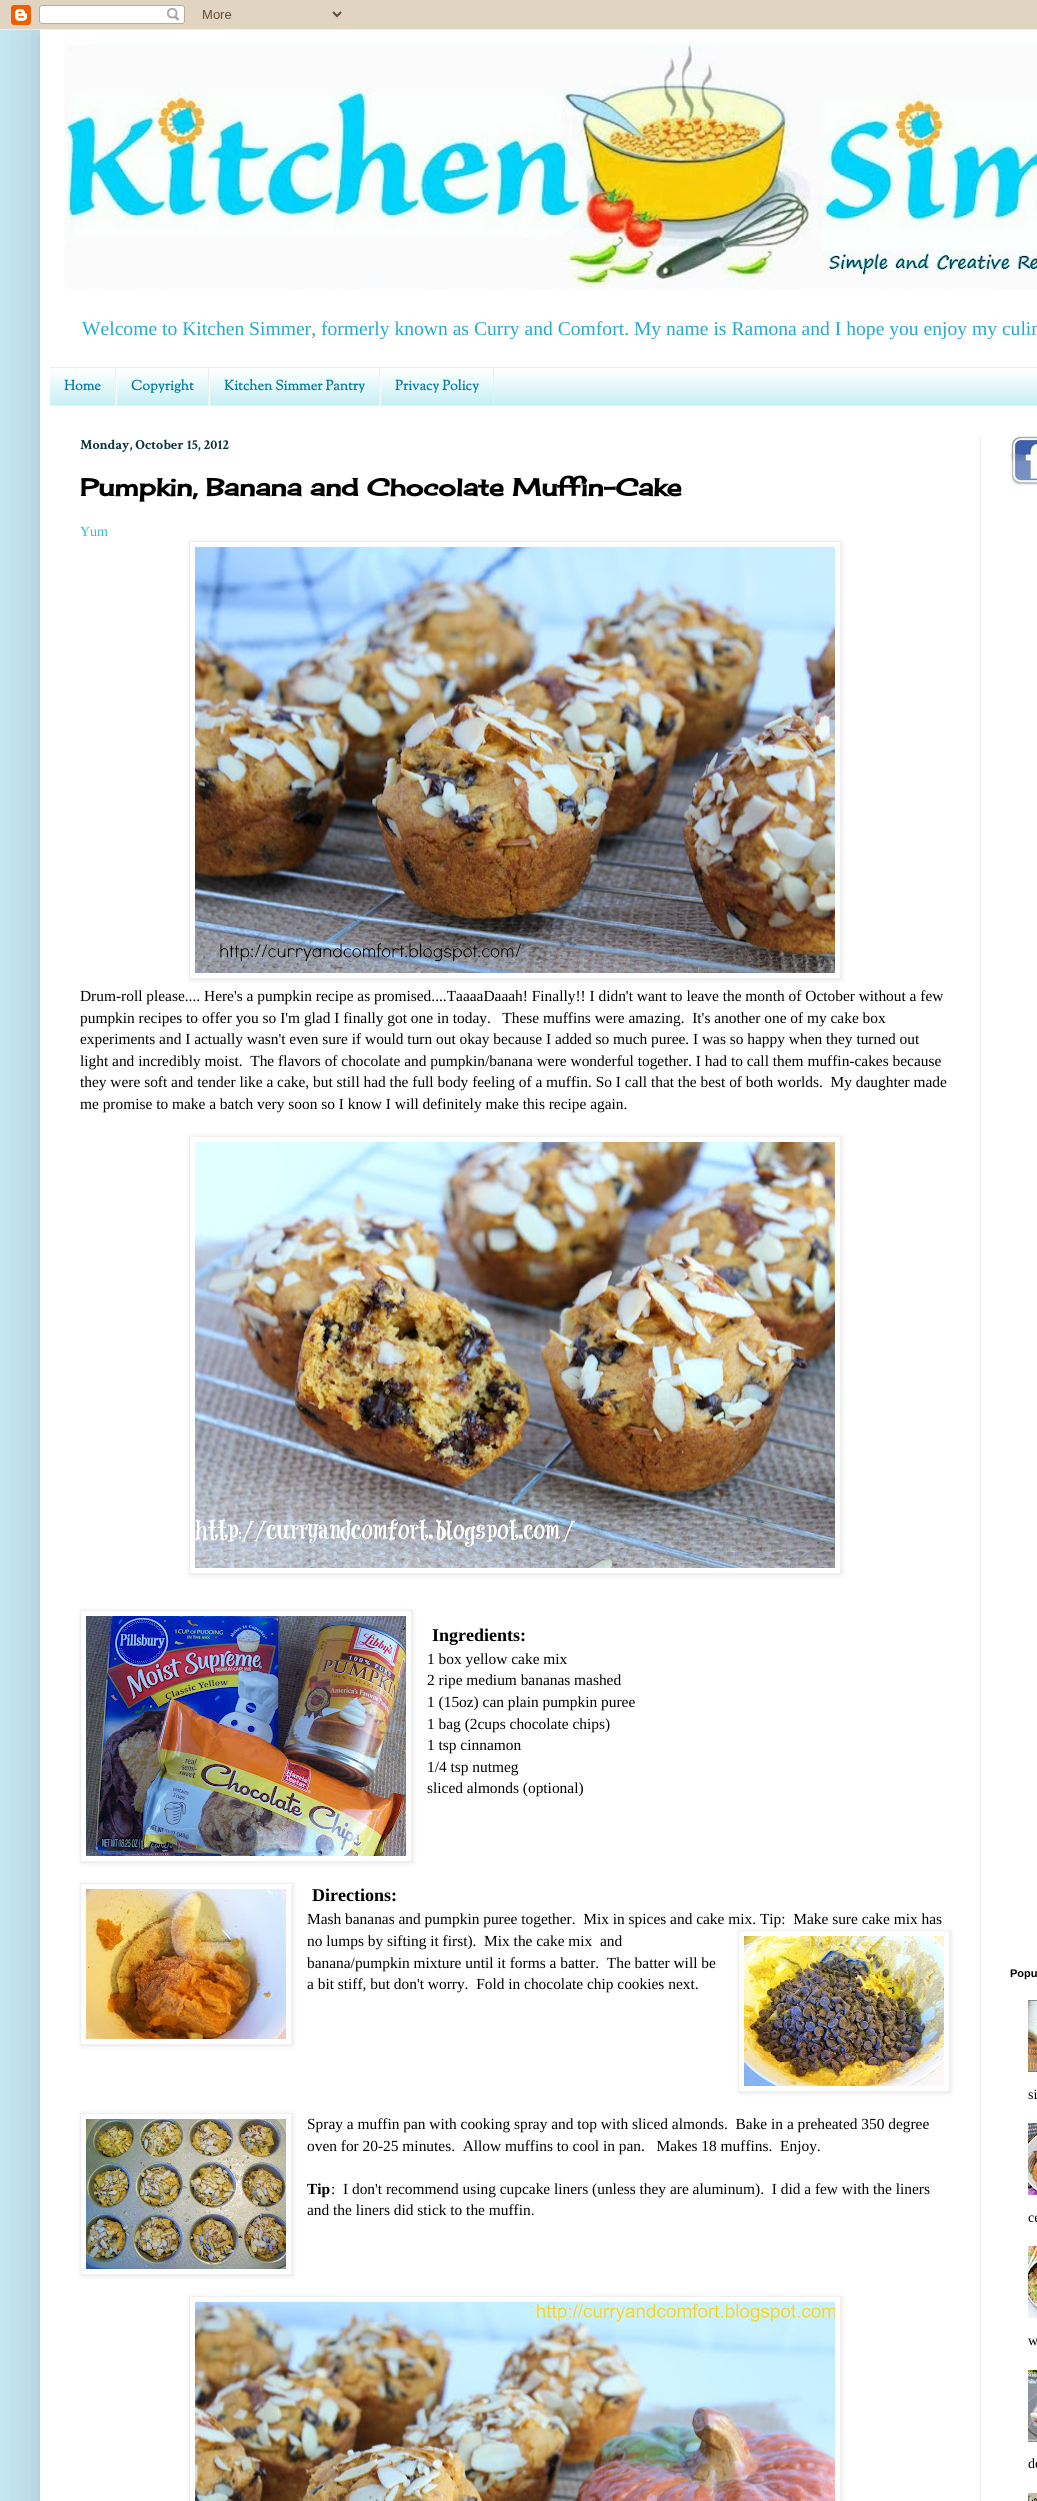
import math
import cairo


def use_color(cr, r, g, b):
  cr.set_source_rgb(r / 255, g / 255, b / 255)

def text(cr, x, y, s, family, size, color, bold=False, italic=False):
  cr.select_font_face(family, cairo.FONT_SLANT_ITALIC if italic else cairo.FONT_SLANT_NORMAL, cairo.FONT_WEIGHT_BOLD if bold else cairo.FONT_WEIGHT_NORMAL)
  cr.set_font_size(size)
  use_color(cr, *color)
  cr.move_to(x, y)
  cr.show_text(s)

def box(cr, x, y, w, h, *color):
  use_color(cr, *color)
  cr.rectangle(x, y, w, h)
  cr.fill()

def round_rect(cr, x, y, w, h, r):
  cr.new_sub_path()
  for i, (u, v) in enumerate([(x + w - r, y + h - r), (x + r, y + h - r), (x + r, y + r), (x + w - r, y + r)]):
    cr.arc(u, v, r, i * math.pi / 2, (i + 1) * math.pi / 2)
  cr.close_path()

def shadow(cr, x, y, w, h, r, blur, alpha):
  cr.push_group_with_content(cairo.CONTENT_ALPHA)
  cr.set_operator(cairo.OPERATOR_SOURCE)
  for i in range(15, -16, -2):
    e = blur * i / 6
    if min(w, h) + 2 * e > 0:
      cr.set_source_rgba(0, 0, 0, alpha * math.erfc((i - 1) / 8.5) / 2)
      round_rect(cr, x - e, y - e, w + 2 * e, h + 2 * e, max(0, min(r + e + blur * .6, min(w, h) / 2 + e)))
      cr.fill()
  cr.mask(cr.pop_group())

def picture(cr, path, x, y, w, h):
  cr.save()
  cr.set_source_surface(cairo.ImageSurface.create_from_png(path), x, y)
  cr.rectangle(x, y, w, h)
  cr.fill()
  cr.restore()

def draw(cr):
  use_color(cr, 195, 230, 242)
  cr.paint()
  use_color(cr, 0, 0, 0)
  shadow(cr, 40, 30, 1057, 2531, 0, 20, 0.15)
  picture(cr, "img_01.png", 0, 0, 1037, 30)
  box(cr, 40, 30, 997, 2471, 255, 255, 255)
  picture(cr, "img_02.png", 64, 40, 973, 250)
  box(cr, 50, 369, 987, 36, 195, 239, 244)
  picture(cr, "img_03.png", 50, 368, 987, 36)
  box(cr, 50, 367, 987, 1, 238, 238, 238)
  box(cr, 50, 405, 987, 1, 238, 238, 238)
  box(cr, 115, 368, 1, 37, 238, 238, 238)
  box(cr, 208, 368, 1, 37, 238, 238, 238)
  box(cr, 116, 368, 1, 37, 255, 255, 255)
  box(cr, 379, 368, 1, 37, 238, 238, 238)
  box(cr, 209, 368, 1, 37, 255, 255, 255)
  box(cr, 493, 368, 1, 37, 238, 238, 238)
  box(cr, 380, 368, 1, 37, 255, 255, 255)
  box(cr, 980, 436, 1, 2065, 240, 240, 240)
  cr.save()
  cr.set_fill_rule(cairo.FILL_RULE_EVEN_ODD)
  cr.new_path()
  cr.move_to(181, 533)
  cr.line_to(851, 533)
  cr.line_to(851, 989)
  cr.line_to(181, 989)
  cr.close_path()
  cr.move_to(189, 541)
  cr.line_to(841, 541)
  cr.line_to(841, 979)
  cr.line_to(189, 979)
  cr.close_path()
  cr.clip()
  use_color(cr, 0, 0, 0)
  shadow(cr, 190, 542, 652, 438, 0, 2.5, 0.1)
  cr.restore()
  cr.rectangle(189.5, 541.5, 651, 437)
  cr.set_line_width(1)
  cr.stroke()
  picture(cr, "img_04.png", 195, 547, 640, 426)
  cr.save()
  cr.set_fill_rule(cairo.FILL_RULE_EVEN_ODD)
  cr.new_path()
  cr.move_to(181, 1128)
  cr.line_to(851, 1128)
  cr.line_to(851, 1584)
  cr.line_to(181, 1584)
  cr.close_path()
  cr.move_to(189, 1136)
  cr.line_to(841, 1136)
  cr.line_to(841, 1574)
  cr.line_to(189, 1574)
  cr.close_path()
  cr.clip()
  use_color(cr, 0, 0, 0)
  shadow(cr, 190, 1137, 652, 438, 0, 2.5, 0.1)
  cr.restore()
  cr.rectangle(189.5, 1136.5, 651, 437)
  cr.stroke()
  picture(cr, "img_05.png", 195, 1142, 640, 426)
  cr.save()
  cr.set_fill_rule(cairo.FILL_RULE_EVEN_ODD)
  cr.new_path()
  cr.move_to(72, 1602)
  cr.line_to(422, 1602)
  cr.line_to(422, 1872)
  cr.line_to(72, 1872)
  cr.close_path()
  cr.move_to(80, 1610)
  cr.line_to(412, 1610)
  cr.line_to(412, 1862)
  cr.line_to(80, 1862)
  cr.close_path()
  cr.clip()
  use_color(cr, 0, 0, 0)
  shadow(cr, 81, 1611, 332, 252, 0, 2.5, 0.1)
  cr.restore()
  cr.rectangle(80.5, 1610.5, 331, 251)
  cr.stroke()
  picture(cr, "img_06.png", 86, 1616, 320, 240)
  cr.save()
  cr.set_fill_rule(cairo.FILL_RULE_EVEN_ODD)
  cr.new_path()
  cr.move_to(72, 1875)
  cr.line_to(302, 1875)
  cr.line_to(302, 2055)
  cr.line_to(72, 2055)
  cr.close_path()
  cr.move_to(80, 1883)
  cr.line_to(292, 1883)
  cr.line_to(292, 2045)
  cr.line_to(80, 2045)
  cr.close_path()
  cr.clip()
  use_color(cr, 0, 0, 0)
  shadow(cr, 81, 1884, 212, 162, 0, 2.5, 0.1)
  cr.restore()
  cr.rectangle(80.5, 1883.5, 211, 161)
  cr.stroke()
  picture(cr, "img_07.png", 86, 1889, 200, 150)
  cr.save()
  cr.set_fill_rule(cairo.FILL_RULE_EVEN_ODD)
  cr.new_path()
  cr.move_to(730, 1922)
  cr.line_to(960, 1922)
  cr.line_to(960, 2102)
  cr.line_to(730, 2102)
  cr.close_path()
  cr.move_to(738, 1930)
  cr.line_to(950, 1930)
  cr.line_to(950, 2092)
  cr.line_to(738, 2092)
  cr.close_path()
  cr.clip()
  use_color(cr, 0, 0, 0)
  shadow(cr, 739, 1931, 212, 162, 0, 2.5, 0.1)
  cr.restore()
  cr.rectangle(738.5, 1930.5, 211, 161)
  cr.stroke()
  picture(cr, "img_08.png", 744, 1936, 200, 150)
  cr.save()
  cr.set_fill_rule(cairo.FILL_RULE_EVEN_ODD)
  cr.new_path()
  cr.move_to(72, 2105)
  cr.line_to(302, 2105)
  cr.line_to(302, 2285)
  cr.line_to(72, 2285)
  cr.close_path()
  cr.move_to(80, 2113)
  cr.line_to(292, 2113)
  cr.line_to(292, 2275)
  cr.line_to(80, 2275)
  cr.close_path()
  cr.clip()
  use_color(cr, 0, 0, 0)
  shadow(cr, 81, 2114, 212, 162, 0, 2.5, 0.1)
  cr.restore()
  cr.rectangle(80.5, 2113.5, 211, 161)
  cr.stroke()
  picture(cr, "img_09.png", 86, 2119, 200, 150)
  cr.save()
  cr.set_fill_rule(cairo.FILL_RULE_EVEN_ODD)
  cr.new_path()
  cr.move_to(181, 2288)
  cr.line_to(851, 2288)
  cr.line_to(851, 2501)
  cr.line_to(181, 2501)
  cr.close_path()
  cr.move_to(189, 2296)
  cr.line_to(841, 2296)
  cr.line_to(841, 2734)
  cr.line_to(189, 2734)
  cr.close_path()
  cr.clip()
  use_color(cr, 0, 0, 0)
  shadow(cr, 190, 2297, 652, 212, 0, 2.5, 0.1)
  cr.restore()
  cr.rectangle(189.5, 2296.5, 651, 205)
  cr.stroke()
  picture(cr, "img_10.png", 195, 2302, 640, 199)
  picture(cr, "img_11.png", 1010, 436, 27, 50)
  picture(cr, "img_12.png", 1028, 2000, 9, 72)
  picture(cr, "img_13.png", 1028, 2123, 9, 72)
  picture(cr, "img_14.png", 1028, 2246, 9, 72)
  picture(cr, "img_15.png", 1028, 2370, 9, 72)
  picture(cr, "img_16.png", 1028, 2493, 9, 8)
  text(cr, 82, 335, "Welcome to Kitchen Simmer, formerly known as Curry and Comfort. My name is Ramona and I hope you enjoy my culin", "Liberation Serif", 19.6, (37, 170, 206))
  text(cr, 64, 390, "Home", "Sorts Mill Goudy", 14, (10, 125, 157), bold=True)
  text(cr, 131, 390, "Copyright", "Sorts Mill Goudy", 14, (10, 125, 157), bold=True)
  text(cr, 224, 390, "Kitchen Simmer Pantry", "Sorts Mill Goudy", 14, (10, 125, 157), bold=True)
  text(cr, 395, 390, "Privacy Policy", "Sorts Mill Goudy", 14, (10, 125, 157), bold=True)
  text(cr, 80, 449, "Monday, October 15, 2012", "Crimson Text", 14, (12, 52, 61), bold=True)
  text(cr, 80, 496, "Pumpkin, Banana and Chocolate Muffin-Cake", "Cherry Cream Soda", 24, (0, 0, 0), bold=True)
  text(cr, 80, 536, "Yum", "Liberation Serif", 14, (56, 183, 200))
  text(cr, 80, 1001, "Drum-roll please.... Here's a pumpkin recipe as promised....TaaaaDaaah! Finally!! I didn't want to leave the month of October without a few", "Liberation Serif", 15.4, (0, 0, 0))
  text(cr, 80, 1023, "pumpkin recipes to offer you so I'm glad I finally got one in today.   These muffins were amazing.  It's another one of my cake box", "Liberation Serif", 15.4, (0, 0, 0))
  text(cr, 80, 1044, "experiments and I actually wasn't even sure if would turn out okay because I added so much puree. I was so happy when they turned out", "Liberation Serif", 15.4, (0, 0, 0))
  text(cr, 80, 1066, "light and incredibly moist.  The flavors of chocolate and pumpkin/banana were wonderful together. I had to call them muffin-cakes because", "Liberation Serif", 15.4, (0, 0, 0))
  text(cr, 80, 1087, "they were soft and tender like a cake, but still had the full body feeling of a muffin. So I call that the best of both worlds.  My daughter made", "Liberation Serif", 15.4, (0, 0, 0))
  text(cr, 80, 1109, "me promise to make a batch very soon so I know I will definitely make this recipe again.", "Liberation Serif", 15.4, (0, 0, 0))
  text(cr, 432, 1641, "Ingredients:", "Liberation Serif", 18, (0, 0, 0), bold=True)
  text(cr, 427, 1664, "1 box yellow cake mix", "Liberation Serif", 15.4, (0, 0, 0))
  text(cr, 427, 1685, "2 ripe medium bananas mashed", "Liberation Serif", 15.4, (0, 0, 0))
  text(cr, 427, 1707, "1 (15oz) can plain pumpkin puree", "Liberation Serif", 15.4, (0, 0, 0))
  text(cr, 427, 1729, "1 bag (2cups chocolate chips)", "Liberation Serif", 15.4, (0, 0, 0))
  text(cr, 427, 1750, "1 tsp cinnamon", "Liberation Serif", 15.4, (0, 0, 0))
  text(cr, 427, 1772, "1/4 tsp nutmeg", "Liberation Serif", 15.4, (0, 0, 0))
  text(cr, 427, 1793, "sliced almonds (optional)", "Liberation Serif", 15.4, (0, 0, 0))
  text(cr, 312, 1901, "Directions:", "Liberation Serif", 18, (0, 0, 0), bold=True)
  text(cr, 307, 1924, "Mash bananas and pumpkin puree together.  Mix in spices and cake mix. Tip:  Make sure cake mix has", "Liberation Serif", 15.4, (0, 0, 0))
  text(cr, 307, 1946, "no lumps by sifting it first).  Mix the cake mix  and", "Liberation Serif", 15.4, (0, 0, 0))
  text(cr, 307, 1968, "banana/pumpkin mixture until it forms a batter.  The batter will be", "Liberation Serif", 15.4, (0, 0, 0))
  text(cr, 307, 1989, "a bit stiff, but don't worry.  Fold in chocolate chip cookies next.", "Liberation Serif", 15.4, (0, 0, 0))
  text(cr, 307, 2129, "Spray a muffin pan with cooking spray and top with sliced almonds.  Bake in a preheated 350 degree", "Liberation Serif", 15.4, (0, 0, 0))
  text(cr, 307, 2151, "oven for 20-25 minutes.  Allow muffins to cool in pan.   Makes 18 muffins.  Enjoy.", "Liberation Serif", 15.4, (0, 0, 0))
  text(cr, 307, 2194, "Tip", "Liberation Serif", 15.4, (0, 0, 0), bold=True)
  text(cr, 331, 2194, ":  I don't recommend using cupcake liners (unless they are aluminum).  I did a few with the liners", "Liberation Serif", 15.4, (0, 0, 0))
  text(cr, 307, 2215, "and the liners did stick to the muffin.", "Liberation Serif", 15.4, (0, 0, 0))
  text(cr, 1010, 1977, "Popu", "Liberation Sans", 11, (0, 0, 0), bold=True)
  text(cr, 1028, 2099, "si", "Liberation Serif", 14, (0, 0, 0))
  text(cr, 1028, 2222, "ce", "Liberation Serif", 14, (0, 0, 0))
  text(cr, 1028, 2345, "w", "Liberation Serif", 14, (0, 0, 0))
  text(cr, 1028, 2468, "de", "Liberation Serif", 14, (0, 0, 0))


surface = cairo.ImageSurface(cairo.FORMAT_RGB24, 1037, 2501)
cr = cairo.Context(surface)
options = cairo.FontOptions()
options.set_hint_metrics(cairo.HINT_METRICS_OFF)
options.set_hint_style(cairo.HINT_STYLE_NONE)
cr.set_font_options(options)
cr.set_miter_limit(4)
draw(cr)
surface.write_to_png("out.png")
